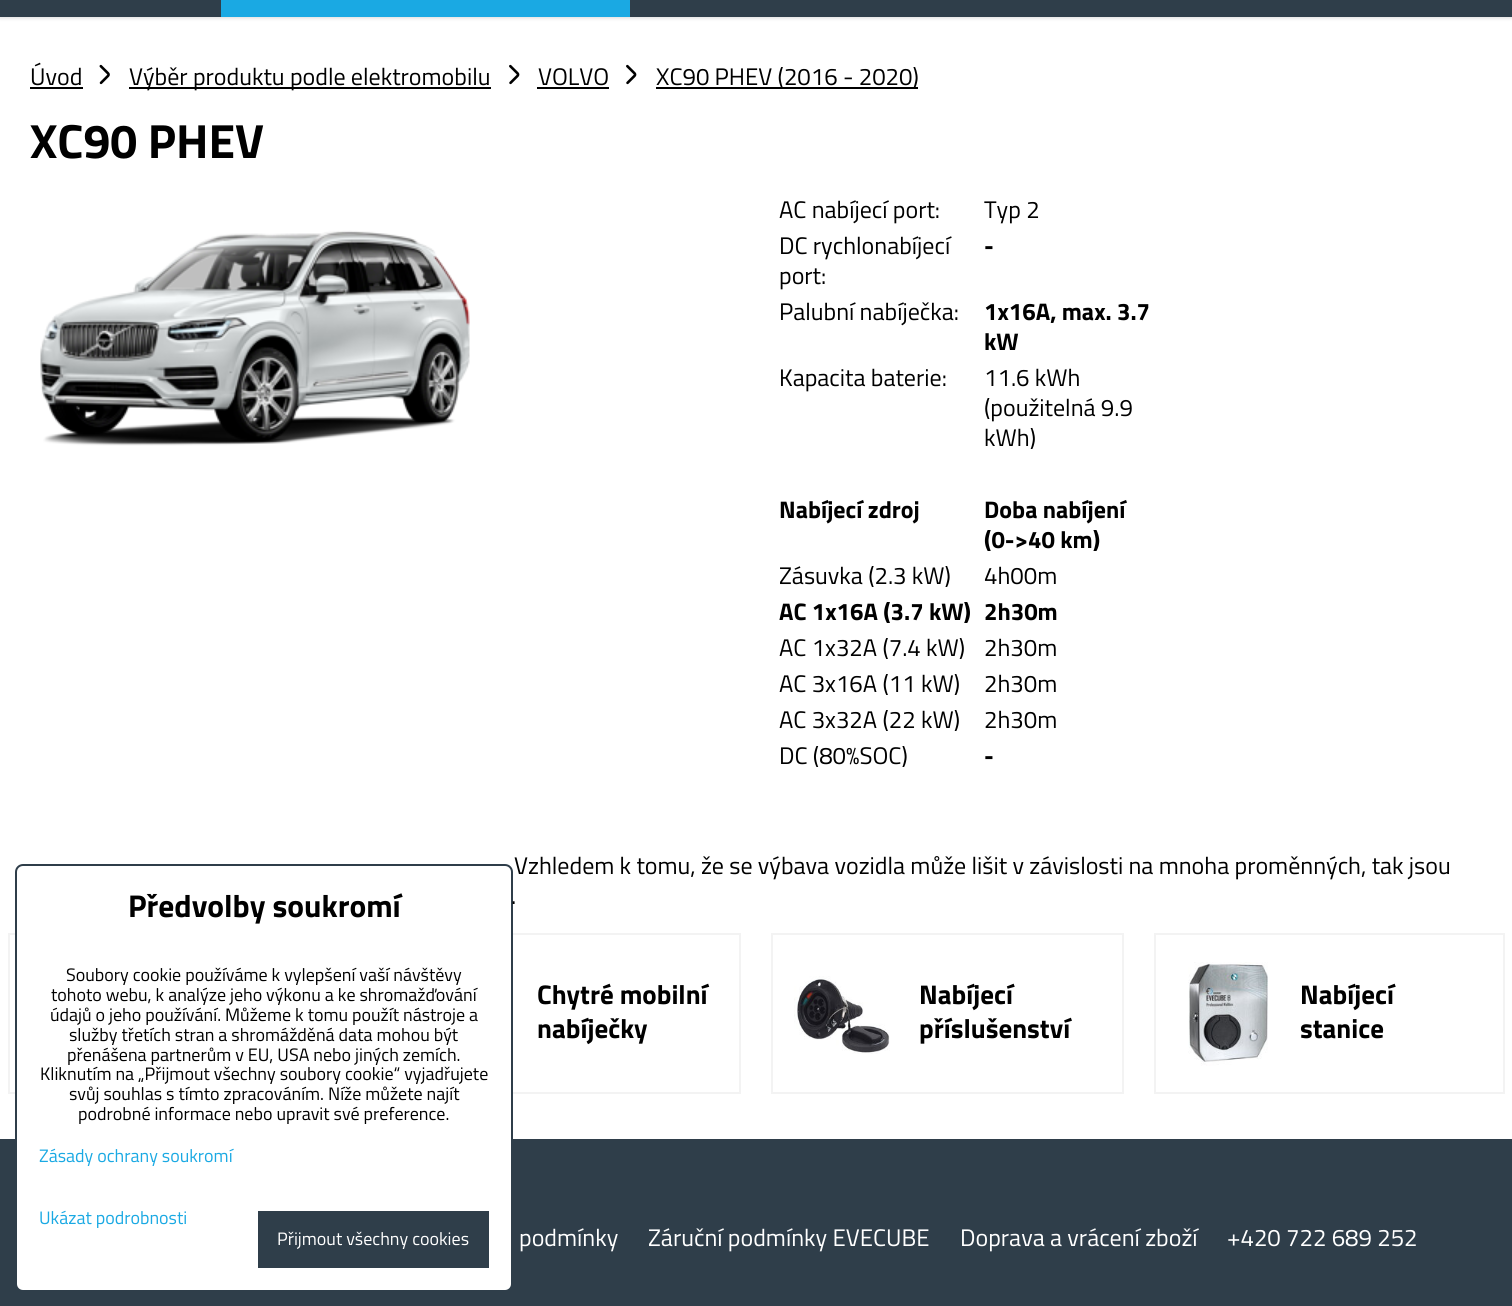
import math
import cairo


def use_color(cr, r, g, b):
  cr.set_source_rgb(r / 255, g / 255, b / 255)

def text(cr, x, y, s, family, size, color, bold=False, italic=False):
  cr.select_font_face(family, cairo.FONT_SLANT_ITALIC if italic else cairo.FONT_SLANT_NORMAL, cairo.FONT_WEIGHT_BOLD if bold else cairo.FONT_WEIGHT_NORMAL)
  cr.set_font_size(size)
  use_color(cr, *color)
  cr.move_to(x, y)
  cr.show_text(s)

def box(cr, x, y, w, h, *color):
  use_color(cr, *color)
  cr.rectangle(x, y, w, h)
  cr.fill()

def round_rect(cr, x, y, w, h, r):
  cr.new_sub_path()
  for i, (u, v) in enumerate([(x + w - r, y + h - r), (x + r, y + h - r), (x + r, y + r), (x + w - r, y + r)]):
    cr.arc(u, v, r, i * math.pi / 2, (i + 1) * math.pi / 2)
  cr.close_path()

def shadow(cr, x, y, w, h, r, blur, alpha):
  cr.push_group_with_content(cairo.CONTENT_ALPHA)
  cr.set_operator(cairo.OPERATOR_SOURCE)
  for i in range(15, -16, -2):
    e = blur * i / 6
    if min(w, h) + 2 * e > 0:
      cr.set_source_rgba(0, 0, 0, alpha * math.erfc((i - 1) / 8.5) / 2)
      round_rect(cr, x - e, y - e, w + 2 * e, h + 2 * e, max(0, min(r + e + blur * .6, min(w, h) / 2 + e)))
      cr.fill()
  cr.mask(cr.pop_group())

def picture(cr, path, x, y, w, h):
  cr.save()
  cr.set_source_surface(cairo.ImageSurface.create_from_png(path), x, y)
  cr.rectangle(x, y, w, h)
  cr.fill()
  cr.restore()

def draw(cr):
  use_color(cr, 255, 255, 255)
  cr.paint()
  use_color(cr, 0, 0, 0)
  shadow(cr, 0, -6, 1512, 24, 0, 2, 0.15)
  box(cr, 0, 0, 1512, 17, 47, 62, 74)
  box(cr, 221, 0, 409, 17, 26, 169, 227)
  box(cr, 30, 87, 53, 2, 0, 0, 0)
  picture(cr, "img_01.png", 99, 64, 11, 21)
  box(cr, 129, 87, 362, 2, 0, 0, 0)
  picture(cr, "img_02.png", 509, 64, 11, 21)
  box(cr, 537, 87, 72, 2, 0, 0, 0)
  picture(cr, "img_02.png", 626, 64, 11, 21)
  box(cr, 656, 87, 262, 2, 0, 0, 0)
  picture(cr, "img_03.png", 40, 230, 430, 216)
  cr.rectangle(9, 934, 350, 159)
  use_color(cr, 243, 243, 243)
  cr.stroke()
  cr.rectangle(391, 934, 349, 159)
  cr.stroke()
  cr.rectangle(772, 934, 351, 159)
  cr.stroke()
  picture(cr, "img_04.png", 794, 976, 96, 78)
  cr.rectangle(1155, 934, 349, 159)
  cr.stroke()
  picture(cr, "img_05.png", 1188, 962, 80, 104)
  box(cr, 0, 1139, 1512, 167, 47, 62, 74)
  use_color(cr, 255, 255, 255)
  round_rect(cr, 16, 865, 496, 426, 7)
  cr.fill_preserve()
  use_color(cr, 47, 62, 74)
  cr.stroke()
  box(cr, 258, 1211, 231, 57, 47, 62, 74)
  text(cr, 30, 85, "Úvod", "Titillium Web", 24, (0, 0, 0))
  text(cr, 129, 85, "Výběr produktu podle elektromobilu", "Titillium Web", 24, (0, 0, 0))
  text(cr, 538, 85, "VOLVO", "Titillium Web", 24, (0, 0, 0))
  text(cr, 656, 85, "XC90 PHEV (2016 - 2020)", "Titillium Web", 24, (0, 0, 0))
  text(cr, 30, 158, "XC90 PHEV", "Titillium Web", 48, (0, 0, 0), bold=True)
  text(cr, 779, 218, "AC nabíjecí port:", "Titillium Web", 24, (0, 0, 0))
  text(cr, 984, 218, "Typ 2", "Titillium Web", 24, (0, 0, 0))
  text(cr, 779, 254, "DC rychlonabíjecí", "Titillium Web", 24, (0, 0, 0))
  text(cr, 779, 284, "port:", "Titillium Web", 24, (0, 0, 0))
  text(cr, 984, 254, "-", "Titillium Web", 24, (0, 0, 0), bold=True)
  text(cr, 779, 320, "Palubní nabíječka:", "Titillium Web", 24, (0, 0, 0))
  text(cr, 984, 320, "1x16A, max. 3.7", "Titillium Web", 24, (0, 0, 0), bold=True)
  text(cr, 984, 350, "kW", "Titillium Web", 24, (0, 0, 0), bold=True)
  text(cr, 779, 386, "Kapacita baterie:", "Titillium Web", 24, (0, 0, 0))
  text(cr, 984, 386, "11.6 kWh", "Titillium Web", 24, (0, 0, 0))
  text(cr, 984, 416, "(použitelná 9.9", "Titillium Web", 24, (0, 0, 0))
  text(cr, 984, 446, "kWh)", "Titillium Web", 24, (0, 0, 0))
  text(cr, 779, 518, "Nabíjecí zdroj", "Titillium Web", 24, (0, 0, 0), bold=True)
  text(cr, 984, 518, "Doba nabíjení", "Titillium Web", 24, (0, 0, 0), bold=True)
  text(cr, 984, 548, "(0->40 km)", "Titillium Web", 24, (0, 0, 0), bold=True)
  text(cr, 779, 584, "Zásuvka (2.3 kW)", "Titillium Web", 24, (0, 0, 0))
  text(cr, 984, 584, "4h00m", "Titillium Web", 24, (0, 0, 0))
  text(cr, 779, 620, "AC 1x16A (3.7 kW)", "Titillium Web", 24, (0, 0, 0), bold=True)
  text(cr, 984, 620, "2h30m", "Titillium Web", 24, (0, 0, 0), bold=True)
  text(cr, 779, 656, "AC 1x32A (7.4 kW)", "Titillium Web", 24, (0, 0, 0))
  text(cr, 984, 656, "2h30m", "Titillium Web", 24, (0, 0, 0))
  text(cr, 779, 692, "AC 3x16A (11 kW)", "Titillium Web", 24, (0, 0, 0))
  text(cr, 984, 692, "2h30m", "Titillium Web", 24, (0, 0, 0))
  text(cr, 779, 728, "AC 3x32A (22 kW)", "Titillium Web", 24, (0, 0, 0))
  text(cr, 984, 728, "2h30m", "Titillium Web", 24, (0, 0, 0))
  text(cr, 779, 764, "DC (80%SOC)", "Titillium Web", 24, (0, 0, 0))
  text(cr, 984, 764, "-", "Titillium Web", 24, (0, 0, 0), bold=True)
  text(cr, 514, 874, "Vzhledem k tomu, že se výbava vozidla může lišit v závislosti na mnoha proměnných, tak jsou", "Titillium Web", 24, (0, 0, 0))
  text(cr, 511, 904, ".", "Titillium Web", 24, (0, 0, 0))
  text(cr, 537, 1004, "Chytré mobilní", "Titillium Web", 27, (0, 0, 0), bold=True)
  text(cr, 537, 1038, "nabíječky", "Titillium Web", 27, (0, 0, 0), bold=True)
  text(cr, 919, 1004, "Nabíjecí", "Titillium Web", 27, (0, 0, 0), bold=True)
  text(cr, 919, 1038, "příslušenství", "Titillium Web", 27, (0, 0, 0), bold=True)
  text(cr, 1300, 1004, "Nabíjecí", "Titillium Web", 27, (0, 0, 0), bold=True)
  text(cr, 1300, 1038, "stanice", "Titillium Web", 27, (0, 0, 0), bold=True)
  text(cr, 519, 1246, "podmínky", "Titillium Web", 24, (255, 255, 255))
  text(cr, 648, 1246, "Záruční podmínky EVECUBE", "Titillium Web", 24, (255, 255, 255))
  text(cr, 960, 1246, "Doprava a vrácení zboží", "Titillium Web", 24, (255, 255, 255))
  text(cr, 1227, 1246, "+420 722 689 252", "Titillium Web", 24, (255, 255, 255))
  text(cr, 128, 917, "Předvolby soukromí", "Titillium Web", 31.5, (0, 0, 0), bold=True)
  text(cr, 66, 981, "Soubory cookie používáme k vylepšení vaší návštěvy", "Titillium Web", 18, (0, 0, 0))
  text(cr, 51, 1001, "tohoto webu, k analýze jeho výkonu a ke shromažďování", "Titillium Web", 18, (0, 0, 0))
  text(cr, 50, 1021, "údajů o jeho používání. Můžeme k tomu použít nástroje a", "Titillium Web", 18, (0, 0, 0))
  text(cr, 69, 1041, "služby třetích stran a shromážděná data mohou být", "Titillium Web", 18, (0, 0, 0))
  text(cr, 67, 1061, "přenášena partnerům v EU, USA nebo jiných zemích.", "Titillium Web", 18, (0, 0, 0))
  text(cr, 40, 1080, "Kliknutím na „Přijmout všechny soubory cookie“ vyjadřujete", "Titillium Web", 18, (0, 0, 0))
  text(cr, 69, 1100, "svůj souhlas s tímto zpracováním. Níže můžete najít", "Titillium Web", 18, (0, 0, 0))
  text(cr, 78, 1120, "podrobné informace nebo upravit své preference.", "Titillium Web", 18, (0, 0, 0))
  text(cr, 39, 1162, "Zásady ochrany soukromí", "Titillium Web", 18, (26, 169, 227))
  text(cr, 39, 1224, "Ukázat podrobnosti", "Titillium Web", 18, (26, 169, 227))
  text(cr, 277, 1245, "Přijmout všechny cookies", "Titillium Web", 18, (255, 255, 255))


surface = cairo.ImageSurface(cairo.FORMAT_RGB24, 1512, 1306)
cr = cairo.Context(surface)
options = cairo.FontOptions()
options.set_hint_metrics(cairo.HINT_METRICS_OFF)
options.set_hint_style(cairo.HINT_STYLE_NONE)
cr.set_font_options(options)
cr.set_miter_limit(4)
draw(cr)
surface.write_to_png("out.png")
